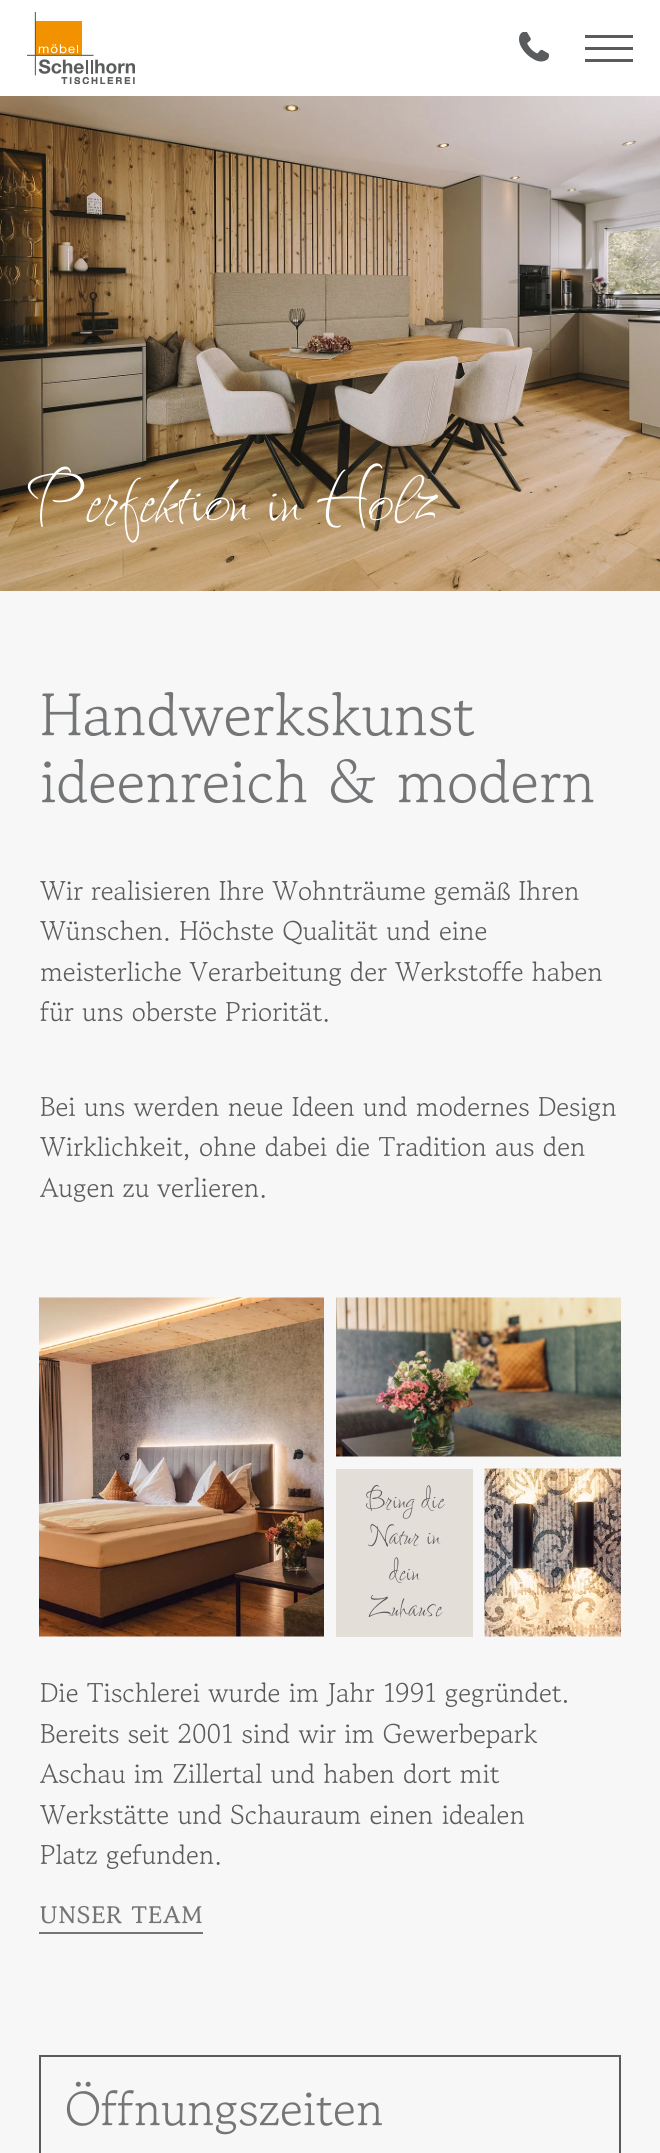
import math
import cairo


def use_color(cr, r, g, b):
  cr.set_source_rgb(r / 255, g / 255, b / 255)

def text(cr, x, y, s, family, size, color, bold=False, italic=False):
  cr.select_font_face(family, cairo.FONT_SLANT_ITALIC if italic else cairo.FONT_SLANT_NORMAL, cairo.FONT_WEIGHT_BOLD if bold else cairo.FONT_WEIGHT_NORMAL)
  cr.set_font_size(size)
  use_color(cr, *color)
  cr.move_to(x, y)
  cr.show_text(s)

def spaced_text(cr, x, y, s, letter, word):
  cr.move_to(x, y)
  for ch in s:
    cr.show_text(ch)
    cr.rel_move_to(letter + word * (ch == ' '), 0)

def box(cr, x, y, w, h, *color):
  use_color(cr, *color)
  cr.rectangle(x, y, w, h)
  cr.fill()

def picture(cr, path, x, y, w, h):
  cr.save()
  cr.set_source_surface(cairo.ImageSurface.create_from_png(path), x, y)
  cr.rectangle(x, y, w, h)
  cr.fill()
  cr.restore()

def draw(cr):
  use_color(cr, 247, 247, 247)
  cr.paint()
  box(cr, 0, 0, 660, 96, 255, 255, 255)
  picture(cr, "img_01.png", 27, 12, 108, 72)
  picture(cr, "img_02.png", 519, 32, 30, 30)
  box(cr, 585, 47, 48, 3, 89, 91, 92)
  box(cr, 585, 35, 48, 3, 89, 91, 92)
  box(cr, 585, 59, 48, 3, 89, 91, 92)
  picture(cr, "img_03.png", 0, 96, 660, 495)
  picture(cr, "img_04.png", 39, 1297, 285, 340)
  picture(cr, "img_05.png", 336, 1297, 285, 160)
  box(cr, 336, 1469, 137, 168, 228, 222, 217)
  picture(cr, "img_06.png", 484, 1468, 137, 169)
  box(cr, 39, 1932, 164, 2, 115, 117, 119)
  cr.rectangle(40, 2056, 580, 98)
  use_color(cr, 89, 91, 92)
  cr.stroke()
  cr.select_font_face("Fuggles")
  cr.set_font_size(90)
  use_color(cr, 255, 255, 255)
  spaced_text(cr, 26, 521, "Perfektion in Holz", 0, -1)
  text(cr, 40, 740, "Handwerkskunst", "Gowun Batang", 60, (115, 117, 119))
  text(cr, 40, 807, "ideenreich & modern", "Gowun Batang", 60, (115, 117, 119))
  cr.set_font_size(27)
  use_color(cr, 89, 91, 92)
  spaced_text(cr, 40, 902, "Wir realisieren Ihre Wohnträume gemäß Ihren", 0, -0.5)
  text(cr, 40, 942, "Wünschen. Höchste Qualität und eine", "Gowun Batang", 27, (89, 91, 92))
  spaced_text(cr, 40, 983, "meisterliche Verarbeitung der Werkstoffe haben", 0, -0.5)
  text(cr, 40, 1023, "für uns oberste Priorität.", "Gowun Batang", 27, (89, 91, 92))
  text(cr, 40, 1118, "Bei uns werden neue Ideen und modernes Design", "Gowun Batang", 27, (89, 91, 92))
  text(cr, 40, 1158, "Wirklichkeit, ohne dabei die Tradition aus den", "Gowun Batang", 27, (89, 91, 92))
  spaced_text(cr, 40, 1199, "Augen zu verlieren.", 0, -0.5)
  text(cr, 365, 1508, "Bring die", "Fuggles", 36, (89, 91, 92))
  text(cr, 368, 1544, "Natur in", "Fuggles", 36, (89, 91, 92))
  text(cr, 389, 1580, "dein", "Fuggles", 36, (89, 91, 92))
  text(cr, 368, 1616, "Zuhause", "Fuggles", 36, (89, 91, 92))
  text(cr, 40, 1704, "Die Tischlerei wurde im Jahr 1991 gegründet.", "Gowun Batang", 27, (89, 91, 92))
  text(cr, 40, 1745, "Bereits seit 2001 sind wir im Gewerbepark", "Gowun Batang", 27, (89, 91, 92))
  text(cr, 40, 1785, "Aschau im Zillertal und haben dort mit", "Gowun Batang", 27, (89, 91, 92))
  text(cr, 40, 1826, "Werkstätte und Schauraum einen idealen", "Gowun Batang", 27, (89, 91, 92))
  text(cr, 40, 1866, "Platz gefunden.", "Gowun Batang", 27, (89, 91, 92))
  cr.select_font_face("Gowun Batang", cairo.FONT_SLANT_NORMAL, cairo.FONT_WEIGHT_BOLD)
  cr.set_font_size(24)
  use_color(cr, 115, 117, 119)
  spaced_text(cr, 40, 1925, "UNSER TEAM", 1.25, 0)
  text(cr, 65, 2129, "Öffnungszeiten", "Gowun Batang", 48, (115, 117, 119))


surface = cairo.ImageSurface(cairo.FORMAT_RGB24, 660, 2153)
cr = cairo.Context(surface)
options = cairo.FontOptions()
options.set_hint_metrics(cairo.HINT_METRICS_OFF)
options.set_hint_style(cairo.HINT_STYLE_NONE)
cr.set_font_options(options)
cr.set_miter_limit(4)
draw(cr)
surface.write_to_png("out.png")
